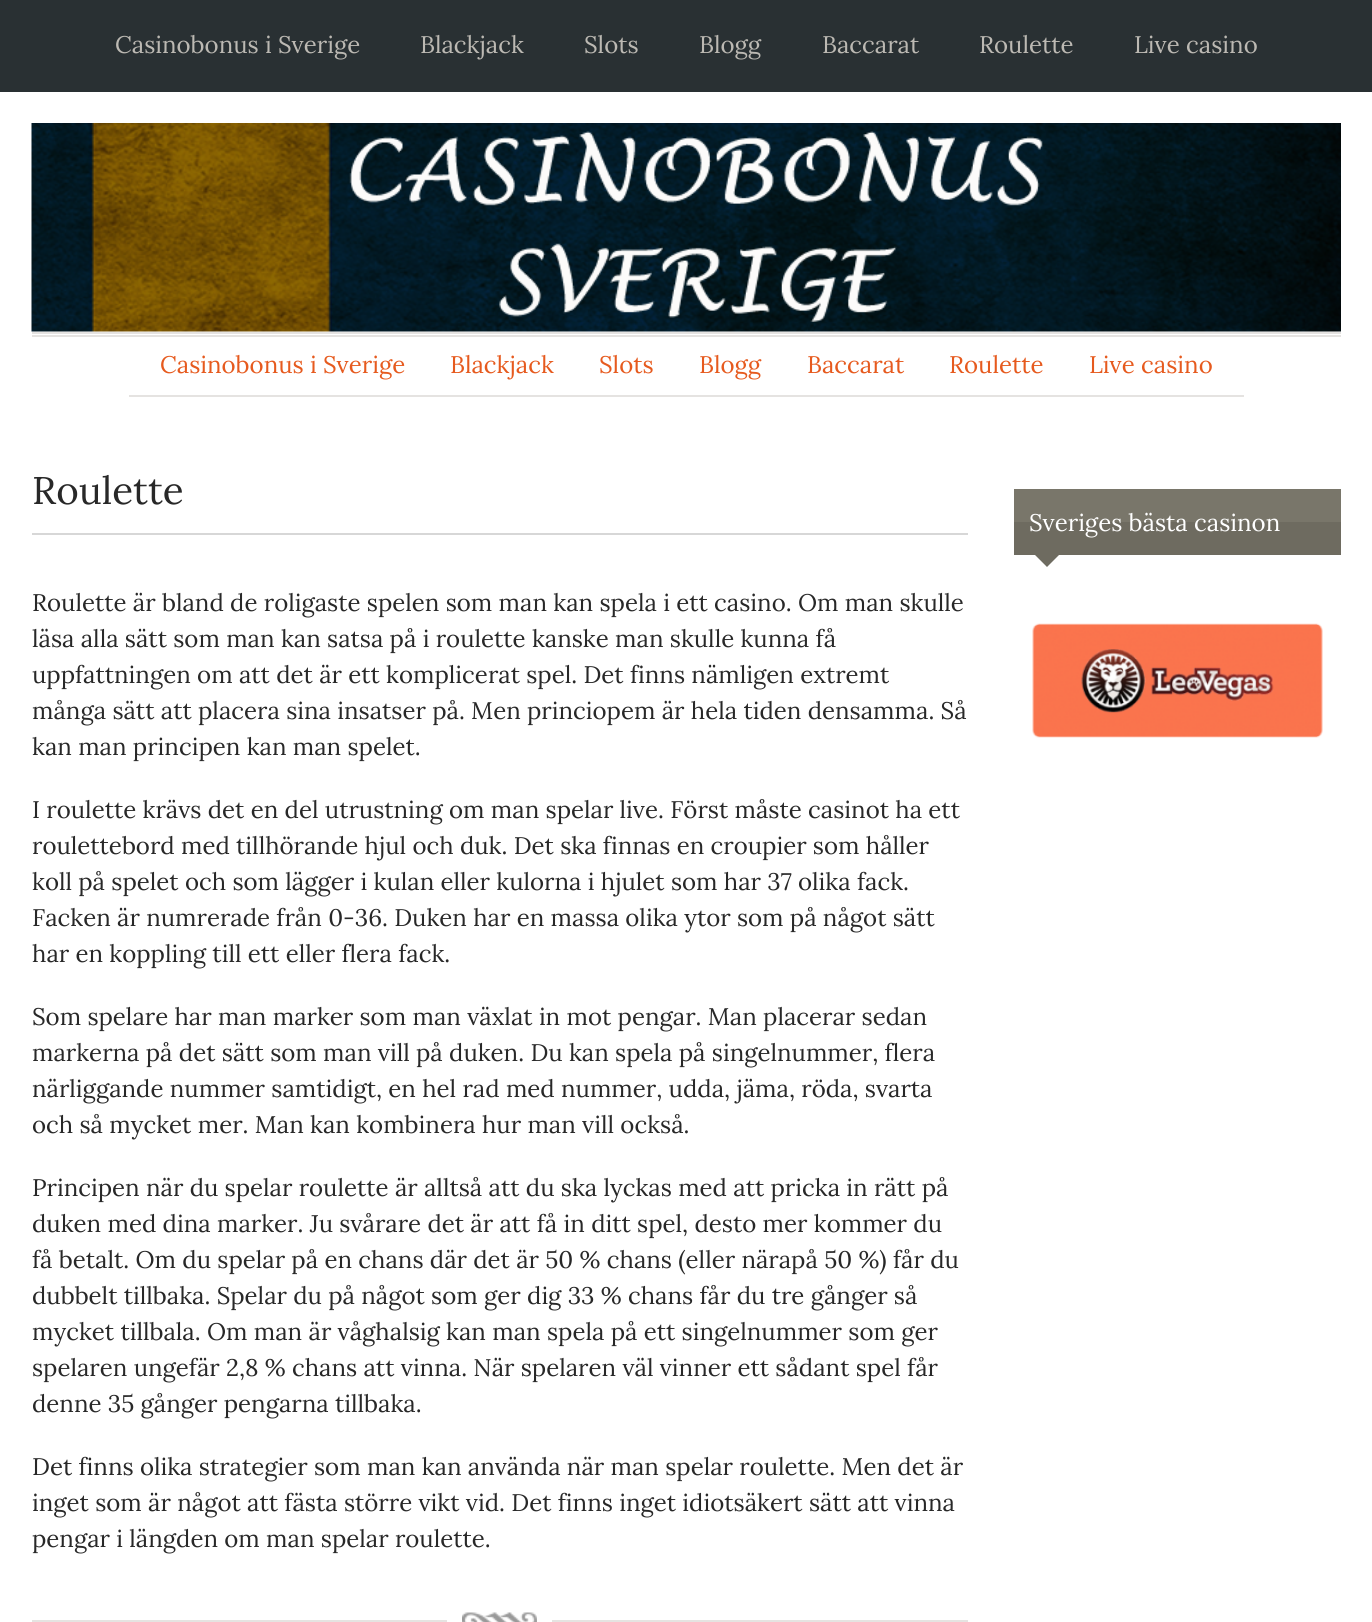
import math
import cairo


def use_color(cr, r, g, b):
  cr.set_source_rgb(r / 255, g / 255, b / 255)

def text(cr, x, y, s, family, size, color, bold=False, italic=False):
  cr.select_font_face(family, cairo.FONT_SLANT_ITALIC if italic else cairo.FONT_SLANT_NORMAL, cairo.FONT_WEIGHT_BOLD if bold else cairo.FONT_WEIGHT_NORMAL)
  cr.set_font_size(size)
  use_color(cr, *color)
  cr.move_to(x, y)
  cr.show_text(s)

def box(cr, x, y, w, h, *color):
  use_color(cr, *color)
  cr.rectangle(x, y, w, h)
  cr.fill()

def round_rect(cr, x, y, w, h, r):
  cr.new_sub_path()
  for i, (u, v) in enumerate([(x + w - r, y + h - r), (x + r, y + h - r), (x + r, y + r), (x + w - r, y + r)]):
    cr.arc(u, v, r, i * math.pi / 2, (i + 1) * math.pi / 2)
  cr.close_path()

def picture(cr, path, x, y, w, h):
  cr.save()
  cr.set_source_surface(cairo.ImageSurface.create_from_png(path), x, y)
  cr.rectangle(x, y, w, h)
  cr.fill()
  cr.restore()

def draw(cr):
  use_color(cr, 41, 48, 51)
  cr.paint()
  box(cr, 0, 92, 1372, 1530, 255, 255, 255)
  picture(cr, "img_01.png", 31, 123, 1310, 209)
  box(cr, 32, 332, 1309, 2, 229, 227, 225)
  box(cr, 32, 335, 1309, 2, 229, 227, 225)
  box(cr, 129, 395, 1115, 2, 229, 227, 225)
  box(cr, 32, 533, 936, 2, 215, 215, 215)
  box(cr, 32, 1620, 936, 2, 229, 227, 225)
  use_color(cr, 255, 255, 255)
  round_rect(cr, 447, 1601, 105, 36, 15)
  cr.fill()
  picture(cr, "img_02.png", 462, 1612, 75, 10)
  box(cr, 1014, 489, 327, 33, 121, 118, 106)
  box(cr, 1014, 522, 327, 33, 110, 107, 96)
  cr.new_path()
  cr.move_to(1035, 555)
  cr.line_to(1059, 555)
  cr.line_to(1047, 567)
  cr.close_path()
  cr.fill()
  picture(cr, "img_03.png", 1032, 623, 291, 115)
  text(cr, 115, 53, "Casinobonus i Sverige", "Lora", 24, (188, 185, 179))
  text(cr, 420, 53, "Blackjack", "Lora", 24, (188, 185, 179))
  text(cr, 584, 53, "Slots", "Lora", 24, (188, 185, 179))
  text(cr, 699, 53, "Blogg", "Lora", 24, (188, 185, 179))
  text(cr, 822, 53, "Baccarat", "Lora", 24, (188, 185, 179))
  text(cr, 979, 53, "Roulette", "Lora", 24, (188, 185, 179))
  text(cr, 1134, 53, "Live casino", "Lora", 24, (188, 185, 179))
  text(cr, 160, 373, "Casinobonus i Sverige", "Lora", 24, (230, 90, 30))
  text(cr, 450, 373, "Blackjack", "Lora", 24, (230, 90, 30))
  text(cr, 599, 373, "Slots", "Lora", 24, (230, 90, 30))
  text(cr, 699, 373, "Blogg", "Lora", 24, (230, 90, 30))
  text(cr, 807, 373, "Baccarat", "Lora", 24, (230, 90, 30))
  text(cr, 949, 373, "Roulette", "Lora", 24, (230, 90, 30))
  text(cr, 1089, 373, "Live casino", "Lora", 24, (230, 90, 30))
  text(cr, 32, 504, "Roulette", "Lora", 38.5, (40, 40, 40))
  text(cr, 32, 611, "Roulette är bland de roligaste spelen som man kan spela i ett casino. Om man skulle", "Lora", 24, (40, 40, 40))
  text(cr, 32, 647, "läsa alla sätt som man kan satsa på i roulette kanske man skulle kunna få", "Lora", 24, (40, 40, 40))
  text(cr, 32, 683, "uppfattningen om att det är ett komplicerat spel. Det finns nämligen extremt", "Lora", 24, (40, 40, 40))
  text(cr, 32, 719, "många sätt att placera sina insatser på. Men princiopem är hela tiden densamma. Så", "Lora", 24, (40, 40, 40))
  text(cr, 32, 755, "kan man principen kan man spelet.", "Lora", 24, (40, 40, 40))
  text(cr, 32, 818, "I roulette krävs det en del utrustning om man spelar live. Först måste casinot ha ett", "Lora", 24, (40, 40, 40))
  text(cr, 32, 854, "roulettebord med tillhörande hjul och duk. Det ska finnas en croupier som håller", "Lora", 24, (40, 40, 40))
  text(cr, 32, 890, "koll på spelet och som lägger i kulan eller kulorna i hjulet som har 37 olika fack.", "Lora", 24, (40, 40, 40))
  text(cr, 32, 926, "Facken är numrerade från 0-36. Duken har en massa olika ytor som på något sätt", "Lora", 24, (40, 40, 40))
  text(cr, 32, 962, "har en koppling till ett eller flera fack.", "Lora", 24, (40, 40, 40))
  text(cr, 32, 1025, "Som spelare har man marker som man växlat in mot pengar. Man placerar sedan", "Lora", 24, (40, 40, 40))
  text(cr, 32, 1061, "markerna på det sätt som man vill på duken. Du kan spela på singelnummer, flera", "Lora", 24, (40, 40, 40))
  text(cr, 32, 1097, "närliggande nummer samtidigt, en hel rad med nummer, udda, jäma, röda, svarta", "Lora", 24, (40, 40, 40))
  text(cr, 32, 1133, "och så mycket mer. Man kan kombinera hur man vill också.", "Lora", 24, (40, 40, 40))
  text(cr, 32, 1196, "Principen när du spelar roulette är alltså att du ska lyckas med att pricka in rätt på", "Lora", 24, (40, 40, 40))
  text(cr, 32, 1232, "duken med dina marker. Ju svårare det är att få in ditt spel, desto mer kommer du", "Lora", 24, (40, 40, 40))
  text(cr, 32, 1268, "få betalt. Om du spelar på en chans där det är 50 % chans (eller närapå 50 %) får du", "Lora", 24, (40, 40, 40))
  text(cr, 32, 1304, "dubbelt tillbaka. Spelar du på något som ger dig 33 % chans får du tre gånger så", "Lora", 24, (40, 40, 40))
  text(cr, 32, 1340, "mycket tillbala. Om man är våghalsig kan man spela på ett singelnummer som ger", "Lora", 24, (40, 40, 40))
  text(cr, 32, 1376, "spelaren ungefär 2,8 % chans att vinna. När spelaren väl vinner ett sådant spel får", "Lora", 24, (40, 40, 40))
  text(cr, 32, 1412, "denne 35 gånger pengarna tillbaka.", "Lora", 24, (40, 40, 40))
  text(cr, 32, 1475, "Det finns olika strategier som man kan använda när man spelar roulette. Men det är", "Lora", 24, (40, 40, 40))
  text(cr, 32, 1511, "inget som är något att fästa större vikt vid. Det finns inget idiotsäkert sätt att vinna", "Lora", 24, (40, 40, 40))
  text(cr, 32, 1547, "pengar i längden om man spelar roulette.", "Lora", 24, (40, 40, 40))
  text(cr, 1029, 531, "Sveriges bästa casinon", "Lora", 24, (255, 255, 255))


surface = cairo.ImageSurface(cairo.FORMAT_RGB24, 1372, 1622)
cr = cairo.Context(surface)
options = cairo.FontOptions()
options.set_hint_metrics(cairo.HINT_METRICS_OFF)
options.set_hint_style(cairo.HINT_STYLE_NONE)
cr.set_font_options(options)
cr.set_miter_limit(4)
draw(cr)
surface.write_to_png("out.png")
